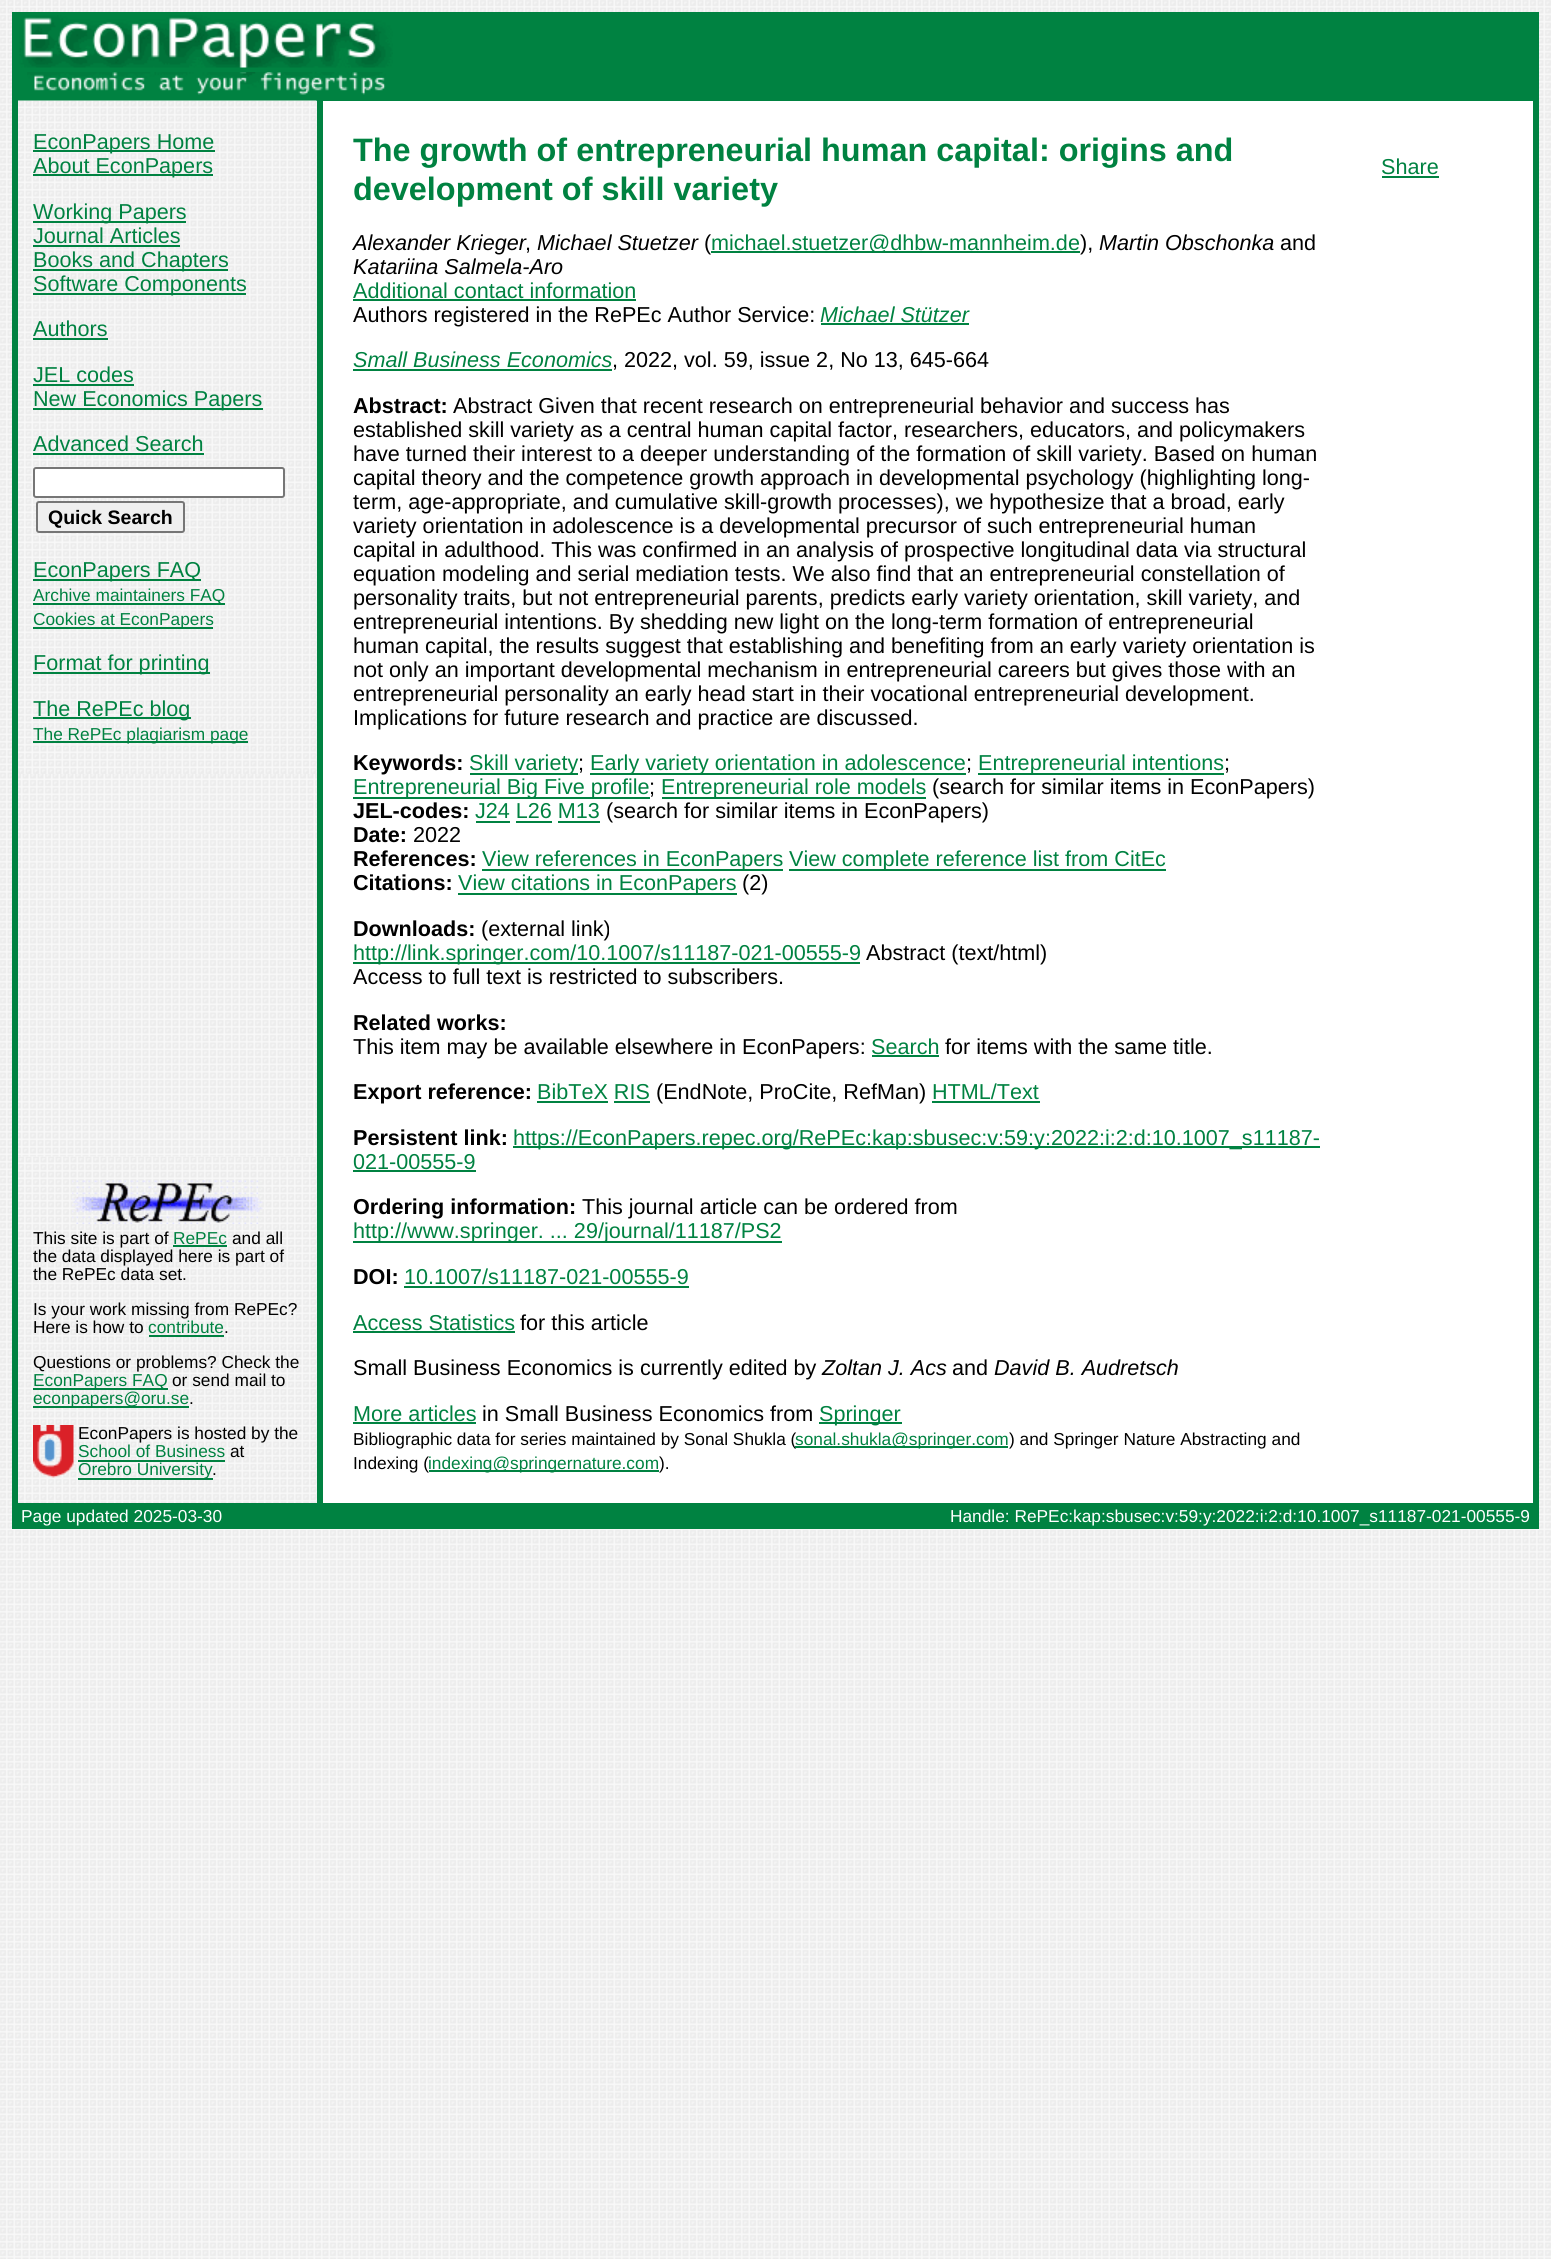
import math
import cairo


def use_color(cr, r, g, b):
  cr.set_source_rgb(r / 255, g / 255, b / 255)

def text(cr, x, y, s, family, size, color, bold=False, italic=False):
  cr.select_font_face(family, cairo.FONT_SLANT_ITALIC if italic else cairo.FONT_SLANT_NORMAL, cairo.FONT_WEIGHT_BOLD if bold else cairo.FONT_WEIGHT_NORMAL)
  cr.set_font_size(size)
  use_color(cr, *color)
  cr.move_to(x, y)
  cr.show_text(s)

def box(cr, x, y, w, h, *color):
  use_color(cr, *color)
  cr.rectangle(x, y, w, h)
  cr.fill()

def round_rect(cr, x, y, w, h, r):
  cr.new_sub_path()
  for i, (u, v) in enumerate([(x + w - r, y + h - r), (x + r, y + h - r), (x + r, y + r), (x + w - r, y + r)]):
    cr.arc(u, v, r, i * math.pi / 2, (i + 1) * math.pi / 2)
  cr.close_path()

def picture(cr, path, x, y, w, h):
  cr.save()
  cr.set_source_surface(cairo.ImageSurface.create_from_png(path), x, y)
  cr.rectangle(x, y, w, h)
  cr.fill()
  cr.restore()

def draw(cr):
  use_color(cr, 255, 255, 255)
  cr.paint()
  picture(cr, "img_01.png", 0, 0, 1551, 2259)
  box(cr, 12, 12, 6, 1517, 0, 130, 65)
  box(cr, 18, 12, 1515, 60, 0, 130, 65)
  picture(cr, "img_02.png", 19, 15, 374, 53)
  box(cr, 1533, 12, 6, 1517, 0, 130, 65)
  box(cr, 18, 72, 1515, 29, 0, 130, 65)
  picture(cr, "img_03.png", 27, 72, 359, 23)
  picture(cr, "img_04.png", 18, 100, 299, 674)
  box(cr, 33, 150, 182, 2, 0, 130, 65)
  box(cr, 33, 174, 180, 2, 0, 130, 65)
  box(cr, 33, 221, 153, 2, 0, 130, 65)
  box(cr, 33, 245, 147, 2, 0, 130, 65)
  box(cr, 33, 269, 195, 2, 0, 130, 65)
  box(cr, 33, 293, 213, 2, 0, 130, 65)
  box(cr, 33, 338, 75, 2, 0, 130, 65)
  box(cr, 33, 384, 101, 2, 0, 130, 65)
  box(cr, 33, 408, 230, 2, 0, 130, 65)
  box(cr, 33, 453, 171, 2, 0, 130, 65)
  use_color(cr, 255, 255, 255)
  round_rect(cr, 34, 468, 250, 29, 2)
  cr.fill_preserve()
  use_color(cr, 118, 118, 118)
  cr.stroke()
  use_color(cr, 239, 239, 239)
  round_rect(cr, 37, 502, 147, 30, 2)
  cr.fill_preserve()
  use_color(cr, 118, 118, 118)
  cr.stroke()
  box(cr, 33, 579, 168, 2, 0, 130, 65)
  box(cr, 33, 603, 192, 2, 0, 130, 65)
  box(cr, 33, 627, 180, 2, 0, 130, 65)
  box(cr, 33, 672, 177, 2, 0, 130, 65)
  box(cr, 33, 717, 158, 2, 0, 130, 65)
  box(cr, 33, 741, 215, 2, 0, 130, 65)
  box(cr, 317, 101, 6, 1402, 0, 130, 65)
  box(cr, 323, 101, 1210, 1402, 255, 255, 255)
  box(cr, 353, 299, 283, 2, 0, 130, 65)
  box(cr, 821, 323, 148, 2, 0, 130, 65)
  box(cr, 353, 369, 259, 2, 0, 130, 65)
  box(cr, 470, 773, 108, 2, 0, 130, 65)
  box(cr, 590, 773, 376, 2, 0, 130, 65)
  box(cr, 978, 773, 246, 2, 0, 130, 65)
  box(cr, 353, 797, 297, 2, 0, 130, 65)
  box(cr, 662, 797, 264, 2, 0, 130, 65)
  box(cr, 476, 821, 34, 2, 0, 130, 65)
  box(cr, 516, 821, 36, 2, 0, 130, 65)
  box(cr, 558, 821, 42, 2, 0, 130, 65)
  box(cr, 482, 869, 301, 2, 0, 130, 65)
  box(cr, 789, 869, 377, 2, 0, 130, 65)
  box(cr, 458, 893, 279, 2, 0, 130, 65)
  box(cr, 353, 962, 507, 2, 0, 130, 65)
  box(cr, 872, 1055, 67, 2, 0, 130, 65)
  box(cr, 537, 1101, 71, 2, 0, 130, 65)
  box(cr, 932, 1101, 108, 2, 0, 130, 65)
  box(cr, 614, 1101, 36, 2, 0, 130, 65)
  box(cr, 513, 1146, 807, 2, 0, 130, 65)
  box(cr, 353, 1170, 123, 2, 0, 130, 65)
  box(cr, 353, 1241, 429, 2, 0, 130, 65)
  box(cr, 404, 1286, 285, 2, 0, 130, 65)
  box(cr, 353, 1331, 162, 2, 0, 130, 65)
  box(cr, 353, 1422, 123, 2, 0, 130, 65)
  box(cr, 819, 1422, 83, 2, 0, 130, 65)
  box(cr, 429, 1470, 230, 2, 0, 130, 65)
  box(cr, 1382, 176, 57, 2, 0, 130, 65)
  picture(cr, "img_05.png", 18, 1156, 299, 347)
  picture(cr, "img_06.png", 72, 1180, 191, 44)
  box(cr, 173, 1245, 54, 2, 0, 130, 65)
  box(cr, 149, 1335, 75, 2, 0, 130, 65)
  box(cr, 33, 1388, 135, 2, 0, 130, 65)
  box(cr, 33, 1406, 156, 2, 0, 130, 65)
  picture(cr, "img_07.png", 33, 1425, 41, 53)
  box(cr, 78, 1460, 147, 2, 0, 130, 65)
  box(cr, 78, 1478, 135, 2, 0, 130, 65)
  box(cr, 18, 1503, 1515, 26, 0, 130, 65)
  text(cr, 33, 149, "EconPapers Home", "Liberation Sans", 21.6, (0, 130, 65))
  text(cr, 33, 173, "About EconPapers", "Liberation Sans", 21.6, (0, 130, 65))
  text(cr, 33, 219, "Working Papers", "Liberation Sans", 21.6, (0, 130, 65))
  text(cr, 33, 243, "Journal Articles", "Liberation Sans", 21.6, (0, 130, 65))
  text(cr, 33, 267, "Books and Chapters", "Liberation Sans", 21.6, (0, 130, 65))
  text(cr, 33, 291, "Software Components", "Liberation Sans", 21.6, (0, 130, 65))
  text(cr, 33, 336, "Authors", "Liberation Sans", 21.6, (0, 130, 65))
  text(cr, 33, 382, "JEL codes", "Liberation Sans", 21.6, (0, 130, 65))
  text(cr, 33, 406, "New Economics Papers", "Liberation Sans", 21.6, (0, 130, 65))
  text(cr, 33, 451, "Advanced Search", "Liberation Sans", 21.6, (0, 130, 65))
  text(cr, 48, 524, "Quick Search", "Liberation Sans", 19.5, (0, 0, 0), bold=True)
  text(cr, 33, 577, "EconPapers FAQ", "Liberation Sans", 21.6, (0, 130, 65))
  text(cr, 33, 601, "Archive maintainers FAQ", "Liberation Sans", 17.3, (0, 130, 65))
  text(cr, 33, 625, "Cookies at EconPapers", "Liberation Sans", 17.3, (0, 130, 65))
  text(cr, 33, 670, "Format for printing", "Liberation Sans", 21.6, (0, 130, 65))
  text(cr, 33, 716, "The RePEc blog", "Liberation Sans", 21.6, (0, 130, 65))
  text(cr, 33, 740, "The RePEc plagiarism page", "Liberation Sans", 17.3, (0, 130, 65))
  text(cr, 353, 161, "The growth of entrepreneurial human capital: origins and", "Liberation Sans", 32.4, (0, 130, 65), bold=True)
  text(cr, 353, 200, "development of skill variety", "Liberation Sans", 32.4, (0, 130, 65), bold=True)
  text(cr, 353, 250, "Alexander Krieger", "Liberation Sans", 21.6, (0, 0, 0), italic=True)
  text(cr, 525, 250, ",", "Liberation Sans", 21.6, (0, 0, 0))
  text(cr, 537, 250, "Michael Stuetzer", "Liberation Sans", 21.6, (0, 0, 0), italic=True)
  text(cr, 704, 250, "(", "Liberation Sans", 21.6, (0, 0, 0))
  box(cr, 711, 251, 369, 2, 0, 130, 65)
  text(cr, 711, 250, "michael.stuetzer@dhbw-mannheim.de", "Liberation Sans", 21.6, (0, 130, 65))
  text(cr, 1080, 250, "),", "Liberation Sans", 21.6, (0, 0, 0))
  text(cr, 1099, 250, "Martin Obschonka", "Liberation Sans", 21.6, (0, 0, 0), italic=True)
  text(cr, 1280, 250, "and", "Liberation Sans", 21.6, (0, 0, 0))
  text(cr, 353, 274, "Katariina Salmela-Aro", "Liberation Sans", 21.6, (0, 0, 0), italic=True)
  text(cr, 353, 298, "Additional contact information", "Liberation Sans", 21.6, (0, 130, 65))
  text(cr, 353, 322, "Authors registered in the RePEc Author Service:", "Liberation Sans", 21.6, (0, 0, 0))
  text(cr, 820, 322, "Michael Stützer", "Liberation Sans", 21.6, (0, 130, 65), italic=True)
  text(cr, 353, 367, "Small Business Economics", "Liberation Sans", 21.6, (0, 130, 65), italic=True)
  text(cr, 612, 367, ", 2022, vol. 59, issue 2, No 13, 645-664", "Liberation Sans", 21.6, (0, 0, 0))
  text(cr, 353, 413, "Abstract:", "Liberation Sans", 21.6, (0, 0, 0), bold=True)
  text(cr, 453, 413, "Abstract Given that recent research on entrepreneurial behavior and success has", "Liberation Sans", 21.6, (0, 0, 0))
  text(cr, 353, 437, "established skill variety as a central human capital factor, researchers, educators, and policymakers", "Liberation Sans", 21.6, (0, 0, 0))
  text(cr, 353, 461, "have turned their interest to a deeper understanding of the formation of skill variety. Based on human", "Liberation Sans", 21.6, (0, 0, 0))
  text(cr, 353, 485, "capital theory and the competence growth approach in developmental psychology (highlighting long-", "Liberation Sans", 21.6, (0, 0, 0))
  text(cr, 353, 509, "term, age-appropriate, and cumulative skill-growth processes), we hypothesize that a broad, early", "Liberation Sans", 21.6, (0, 0, 0))
  text(cr, 353, 533, "variety orientation in adolescence is a developmental precursor of such entrepreneurial human", "Liberation Sans", 21.6, (0, 0, 0))
  text(cr, 353, 557, "capital in adulthood. This was confirmed in an analysis of prospective longitudinal data via structural", "Liberation Sans", 21.6, (0, 0, 0))
  text(cr, 353, 581, "equation modeling and serial mediation tests. We also find that an entrepreneurial constellation of", "Liberation Sans", 21.6, (0, 0, 0))
  text(cr, 353, 605, "personality traits, but not entrepreneurial parents, predicts early variety orientation, skill variety, and", "Liberation Sans", 21.6, (0, 0, 0))
  text(cr, 353, 629, "entrepreneurial intentions. By shedding new light on the long-term formation of entrepreneurial", "Liberation Sans", 21.6, (0, 0, 0))
  text(cr, 353, 653, "human capital, the results suggest that establishing and benefiting from an early variety orientation is", "Liberation Sans", 21.6, (0, 0, 0))
  text(cr, 353, 677, "not only an important developmental mechanism in entrepreneurial careers but gives those with an", "Liberation Sans", 21.6, (0, 0, 0))
  text(cr, 353, 701, "entrepreneurial personality an early head start in their vocational entrepreneurial development.", "Liberation Sans", 21.6, (0, 0, 0))
  text(cr, 353, 725, "Implications for future research and practice are discussed.", "Liberation Sans", 21.6, (0, 0, 0))
  text(cr, 353, 770, "Keywords:", "Liberation Sans", 21.6, (0, 0, 0), bold=True)
  text(cr, 469, 770, "Skill variety", "Liberation Sans", 21.6, (0, 130, 65))
  text(cr, 578, 770, ";", "Liberation Sans", 21.6, (0, 0, 0))
  text(cr, 590, 770, "Early variety orientation in adolescence", "Liberation Sans", 21.6, (0, 130, 65))
  text(cr, 966, 770, ";", "Liberation Sans", 21.6, (0, 0, 0))
  text(cr, 978, 770, "Entrepreneurial intentions", "Liberation Sans", 21.6, (0, 130, 65))
  text(cr, 1224, 770, ";", "Liberation Sans", 21.6, (0, 0, 0))
  text(cr, 353, 794, "Entrepreneurial Big Five profile", "Liberation Sans", 21.6, (0, 130, 65))
  text(cr, 649, 794, ";", "Liberation Sans", 21.6, (0, 0, 0))
  text(cr, 661, 794, "Entrepreneurial role models", "Liberation Sans", 21.6, (0, 130, 65))
  text(cr, 932, 794, "(search for similar items in EconPapers)", "Liberation Sans", 21.6, (0, 0, 0))
  text(cr, 353, 818, "JEL-codes:", "Liberation Sans", 21.6, (0, 0, 0), bold=True)
  text(cr, 475, 818, "J24 L26 M13", "Liberation Sans", 21.6, (0, 130, 65))
  text(cr, 606, 818, "(search for similar items in EconPapers)", "Liberation Sans", 21.6, (0, 0, 0))
  text(cr, 353, 842, "Date:", "Liberation Sans", 21.6, (0, 0, 0), bold=True)
  text(cr, 413, 842, "2022", "Liberation Sans", 21.6, (0, 0, 0))
  text(cr, 353, 866, "References:", "Liberation Sans", 21.6, (0, 0, 0), bold=True)
  text(cr, 482, 866, "View references in EconPapers", "Liberation Sans", 21.6, (0, 130, 65))
  text(cr, 789, 866, "View complete reference list from CitEc", "Liberation Sans", 21.6, (0, 130, 65))
  text(cr, 353, 890, "Citations:", "Liberation Sans", 21.6, (0, 0, 0), bold=True)
  text(cr, 458, 890, "View citations in EconPapers", "Liberation Sans", 21.6, (0, 130, 65))
  text(cr, 742, 890, "(2)", "Liberation Sans", 21.6, (0, 0, 0))
  text(cr, 353, 936, "Downloads:", "Liberation Sans", 21.6, (0, 0, 0), bold=True)
  text(cr, 481, 936, "(external link)", "Liberation Sans", 21.6, (0, 0, 0))
  text(cr, 353, 960, "http://link.springer.com/10.1007/s11187-021-00555-9", "Liberation Sans", 21.6, (0, 130, 65))
  text(cr, 866, 960, "Abstract (text/html)", "Liberation Sans", 21.6, (0, 0, 0))
  text(cr, 353, 984, "Access to full text is restricted to subscribers.", "Liberation Sans", 21.6, (0, 0, 0))
  text(cr, 353, 1030, "Related works:", "Liberation Sans", 21.6, (0, 0, 0), bold=True)
  text(cr, 353, 1054, "This item may be available elsewhere in EconPapers:", "Liberation Sans", 21.6, (0, 0, 0))
  text(cr, 871, 1054, "Search", "Liberation Sans", 21.6, (0, 130, 65))
  text(cr, 945, 1054, "for items with the same title.", "Liberation Sans", 21.6, (0, 0, 0))
  text(cr, 353, 1099, "Export reference:", "Liberation Sans", 21.6, (0, 0, 0), bold=True)
  text(cr, 537, 1099, "BibTeX RIS", "Liberation Sans", 21.6, (0, 130, 65))
  text(cr, 656, 1099, "(EndNote, ProCite, RefMan)", "Liberation Sans", 21.6, (0, 0, 0))
  text(cr, 932, 1099, "HTML/Text", "Liberation Sans", 21.6, (0, 130, 65))
  text(cr, 353, 1145, "Persistent link:", "Liberation Sans", 21.6, (0, 0, 0), bold=True)
  text(cr, 513, 1145, "https://EconPapers.repec.org/RePEc:kap:sbusec:v:59:y:2022:i:2:d:10.1007_s11187-", "Liberation Sans", 21.6, (0, 130, 65))
  text(cr, 353, 1169, "021-00555-9", "Liberation Sans", 21.6, (0, 130, 65))
  text(cr, 353, 1214, "Ordering information:", "Liberation Sans", 21.6, (0, 0, 0), bold=True)
  text(cr, 582, 1214, "This journal article can be ordered from", "Liberation Sans", 21.6, (0, 0, 0))
  text(cr, 353, 1238, "http://www.springer. ... 29/journal/11187/PS2", "Liberation Sans", 21.6, (0, 130, 65))
  text(cr, 353, 1284, "DOI:", "Liberation Sans", 21.6, (0, 0, 0), bold=True)
  text(cr, 404, 1284, "10.1007/s11187-021-00555-9", "Liberation Sans", 21.6, (0, 130, 65))
  text(cr, 353, 1330, "Access Statistics", "Liberation Sans", 21.6, (0, 130, 65))
  text(cr, 520, 1330, "for this article", "Liberation Sans", 21.6, (0, 0, 0))
  text(cr, 353, 1375, "Small Business Economics is currently edited by", "Liberation Sans", 21.6, (0, 0, 0))
  text(cr, 822, 1375, "Zoltan J. Acs", "Liberation Sans", 21.6, (0, 0, 0), italic=True)
  text(cr, 952, 1375, "and", "Liberation Sans", 21.6, (0, 0, 0))
  text(cr, 994, 1375, "David B. Audretsch", "Liberation Sans", 21.6, (0, 0, 0), italic=True)
  text(cr, 353, 1421, "More articles", "Liberation Sans", 21.6, (0, 130, 65))
  text(cr, 482, 1421, "in Small Business Economics from", "Liberation Sans", 21.6, (0, 0, 0))
  text(cr, 819, 1421, "Springer", "Liberation Sans", 21.6, (0, 130, 65))
  text(cr, 353, 1445, "Bibliographic data for series maintained by Sonal Shukla (", "Liberation Sans", 17.3, (0, 0, 0))
  box(cr, 795, 1446, 213, 2, 0, 130, 65)
  text(cr, 795, 1445, "sonal.shukla@springer.com", "Liberation Sans", 17.3, (0, 130, 65))
  text(cr, 1009, 1445, ") and Springer Nature Abstracting and", "Liberation Sans", 17.3, (0, 0, 0))
  text(cr, 353, 1469, "Indexing (", "Liberation Sans", 17.3, (0, 0, 0))
  text(cr, 428, 1469, "indexing@springernature.com", "Liberation Sans", 17.3, (0, 130, 65))
  text(cr, 659, 1469, ").", "Liberation Sans", 17.3, (0, 0, 0))
  text(cr, 1381, 174, "Share", "Liberation Sans", 21.6, (0, 130, 65))
  text(cr, 33, 1244, "This site is part of", "Liberation Sans", 17.3, (0, 0, 0))
  text(cr, 173, 1244, "RePEc", "Liberation Sans", 17.3, (0, 130, 65))
  text(cr, 232, 1244, "and all", "Liberation Sans", 17.3, (0, 0, 0))
  text(cr, 33, 1262, "the data displayed here is part of", "Liberation Sans", 17.3, (0, 0, 0))
  text(cr, 33, 1280, "the RePEc data set.", "Liberation Sans", 17.3, (0, 0, 0))
  text(cr, 33, 1315, "Is your work missing from RePEc?", "Liberation Sans", 17.3, (0, 0, 0))
  text(cr, 33, 1333, "Here is how to", "Liberation Sans", 17.3, (0, 0, 0))
  text(cr, 148, 1333, "contribute", "Liberation Sans", 17.3, (0, 130, 65))
  text(cr, 224, 1333, ".", "Liberation Sans", 17.3, (0, 0, 0))
  text(cr, 33, 1368, "Questions or problems? Check the", "Liberation Sans", 17.3, (0, 0, 0))
  text(cr, 33, 1386, "EconPapers FAQ", "Liberation Sans", 17.3, (0, 130, 65))
  text(cr, 172, 1386, "or send mail to", "Liberation Sans", 17.3, (0, 0, 0))
  text(cr, 33, 1404, "econpapers@oru.se", "Liberation Sans", 17.3, (0, 130, 65))
  text(cr, 189, 1404, ".", "Liberation Sans", 17.3, (0, 0, 0))
  text(cr, 78, 1439, "EconPapers is hosted by the", "Liberation Sans", 17.3, (0, 0, 0))
  text(cr, 78, 1457, "School of Business", "Liberation Sans", 17.3, (0, 130, 65))
  text(cr, 230, 1457, "at", "Liberation Sans", 17.3, (0, 0, 0))
  text(cr, 78, 1475, "Örebro University", "Liberation Sans", 17.3, (0, 130, 65))
  text(cr, 212, 1475, ".", "Liberation Sans", 17.3, (0, 0, 0))
  text(cr, 21, 1522, "Page updated 2025-03-30", "Liberation Sans", 17.3, (255, 255, 255))
  text(cr, 950, 1522, "Handle: RePEc:kap:sbusec:v:59:y:2022:i:2:d:10.1007_s11187-021-00555-9", "Liberation Sans", 17.3, (255, 255, 255))


surface = cairo.ImageSurface(cairo.FORMAT_RGB24, 1551, 2259)
cr = cairo.Context(surface)
options = cairo.FontOptions()
options.set_hint_metrics(cairo.HINT_METRICS_OFF)
options.set_hint_style(cairo.HINT_STYLE_NONE)
cr.set_font_options(options)
cr.set_miter_limit(4)
draw(cr)
surface.write_to_png("out.png")
